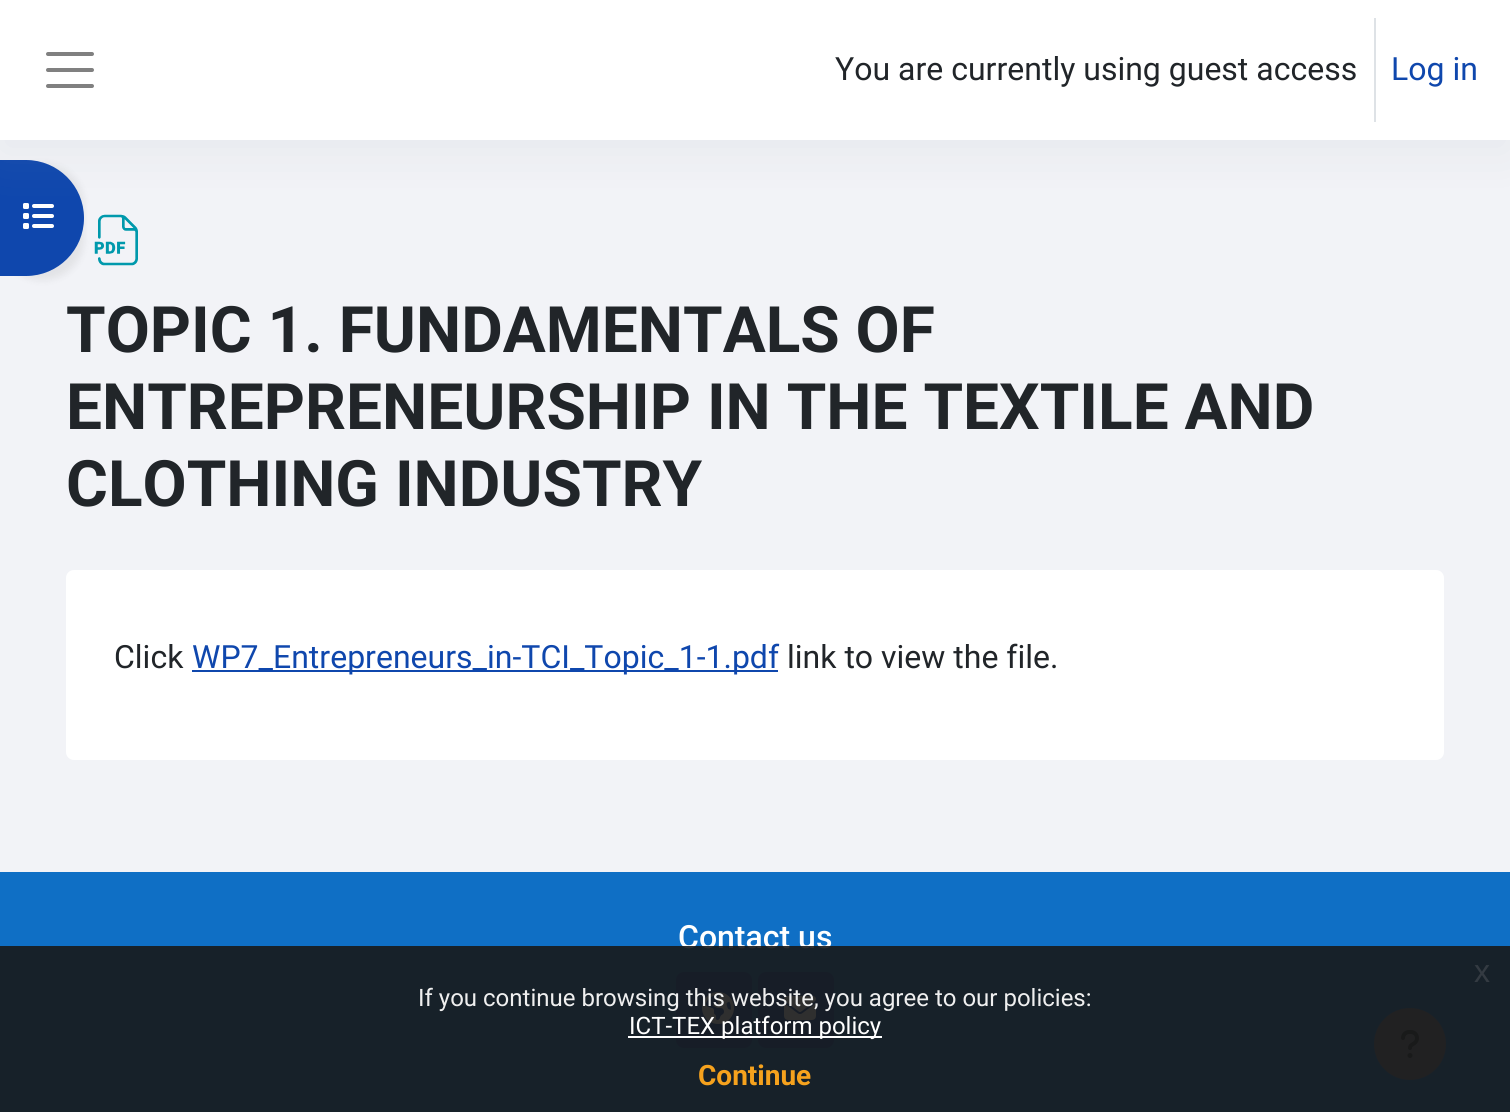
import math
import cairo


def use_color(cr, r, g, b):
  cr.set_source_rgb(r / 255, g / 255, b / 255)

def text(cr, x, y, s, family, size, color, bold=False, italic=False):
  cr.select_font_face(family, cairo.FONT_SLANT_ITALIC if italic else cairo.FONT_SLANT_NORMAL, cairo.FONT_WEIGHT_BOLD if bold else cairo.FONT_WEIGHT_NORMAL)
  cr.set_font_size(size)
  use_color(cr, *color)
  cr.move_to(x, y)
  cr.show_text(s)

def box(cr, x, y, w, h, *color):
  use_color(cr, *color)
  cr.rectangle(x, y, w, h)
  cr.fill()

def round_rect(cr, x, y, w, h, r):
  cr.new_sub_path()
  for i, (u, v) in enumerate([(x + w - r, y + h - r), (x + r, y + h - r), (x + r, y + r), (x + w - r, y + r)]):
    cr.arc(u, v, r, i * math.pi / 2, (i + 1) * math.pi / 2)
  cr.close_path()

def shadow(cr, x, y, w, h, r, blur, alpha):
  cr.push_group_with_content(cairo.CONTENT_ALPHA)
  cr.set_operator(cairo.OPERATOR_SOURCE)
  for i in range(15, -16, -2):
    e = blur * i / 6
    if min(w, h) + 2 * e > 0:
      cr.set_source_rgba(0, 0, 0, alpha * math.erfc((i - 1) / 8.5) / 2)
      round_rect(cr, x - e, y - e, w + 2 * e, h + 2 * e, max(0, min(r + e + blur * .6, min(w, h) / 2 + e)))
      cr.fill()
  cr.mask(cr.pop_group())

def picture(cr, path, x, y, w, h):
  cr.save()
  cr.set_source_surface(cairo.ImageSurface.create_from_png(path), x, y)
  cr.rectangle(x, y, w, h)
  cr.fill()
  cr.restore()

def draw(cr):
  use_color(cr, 242, 243, 247)
  cr.paint()
  picture(cr, "img_01.png", 94, 214, 44, 52)
  use_color(cr, 0, 0, 0)
  shadow(cr, 0, 164, 84, 116, 58, 4, 0.07)
  use_color(cr, 15, 71, 173)
  cr.new_path()
  cr.move_to(0, 160)
  cr.line_to(26, 160)
  cr.curve_to(58, 160, 84, 186, 84, 218)
  cr.curve_to(84, 250, 58, 276, 26, 276)
  cr.line_to(0, 276)
  cr.close_path()
  cr.fill()
  picture(cr, "img_02.png", 23, 203, 31, 26)
  use_color(cr, 140, 152, 164)
  shadow(cr, 0, 12, 1510, 140, 0, 24, 0.13)
  box(cr, 0, 0, 1510, 140, 255, 255, 255)
  cr.new_path()
  cr.move_to(48, 54)
  cr.line_to(92, 54)
  cr.move_to(48, 70)
  cr.line_to(92, 70)
  cr.move_to(48, 86)
  cr.line_to(92, 86)
  use_color(cr, 128, 128, 128)
  cr.set_line_width(4)
  cr.set_line_cap(cairo.LINE_CAP_ROUND)
  cr.stroke()
  box(cr, 1374, 18, 2, 104, 222, 226, 230)
  use_color(cr, 255, 255, 255)
  round_rect(cr, 66, 570, 1378, 190, 8)
  cr.fill()
  box(cr, 192, 670, 586, 2, 15, 71, 173)
  box(cr, 0, 872, 1510, 240, 15, 111, 197)
  use_color(cr, 15, 71, 173)
  round_rect(cr, 676, 972, 76, 76, 8)
  cr.fill()
  picture(cr, "img_03.png", 702, 992, 32, 32)
  round_rect(cr, 758, 972, 76, 76, 8)
  cr.fill()
  picture(cr, "img_04.png", 784, 996, 32, 24)
  use_color(cr, 108, 117, 125)
  cr.arc(1410, 1044, 36, 0, 2 * math.pi)
  cr.fill()
  picture(cr, "img_05.png", 1401, 1030, 18, 28)
  text(cr, 835, 80, "You are currently using guest access", "Roboto", 32, (33, 37, 41))
  text(cr, 1391, 80, "Log in", "Roboto", 32, (15, 71, 173))
  text(cr, 66, 352, "TOPIC 1. FUNDAMENTALS OF", "Roboto", 64, (33, 37, 41), bold=True)
  text(cr, 66, 429, "ENTREPRENEURSHIP IN THE TEXTILE AND", "Roboto", 64, (33, 37, 41), bold=True)
  text(cr, 66, 506, "CLOTHING INDUSTRY", "Roboto", 64, (33, 37, 41), bold=True)
  text(cr, 114, 668, "Click", "Roboto", 32, (33, 37, 41))
  text(cr, 192, 668, "WP7_Entrepreneurs_in-TCI_Topic_1-1.pdf", "Roboto", 32, (15, 71, 173))
  text(cr, 787, 668, "link to view the file.", "Roboto", 32, (33, 37, 41))
  text(cr, 678, 948, "Contact us", "Roboto Medium", 32, (255, 255, 255))
  cr.set_source_rgba(0.098, 0.098, 0.098, 0.9)
  cr.rectangle(0, 946, 1510, 166)
  cr.fill()
  text(cr, 1474, 982, "x", "Liberation Sans", 32, (52, 59, 66))
  text(cr, 418, 1006, "If you continue browsing this website, you agree to our policies:", "Roboto", 24, (239, 239, 239))
  box(cr, 628, 1036, 254, 2, 255, 255, 255)
  text(cr, 629, 1034, "ICT-TEX platform policy", "Roboto", 24, (255, 255, 255))
  text(cr, 698, 1085, "Continue", "Roboto", 28, (246, 162, 29), bold=True)


surface = cairo.ImageSurface(cairo.FORMAT_RGB24, 1510, 1112)
cr = cairo.Context(surface)
options = cairo.FontOptions()
options.set_hint_metrics(cairo.HINT_METRICS_OFF)
options.set_hint_style(cairo.HINT_STYLE_NONE)
cr.set_font_options(options)
cr.set_miter_limit(4)
draw(cr)
surface.write_to_png("out.png")
